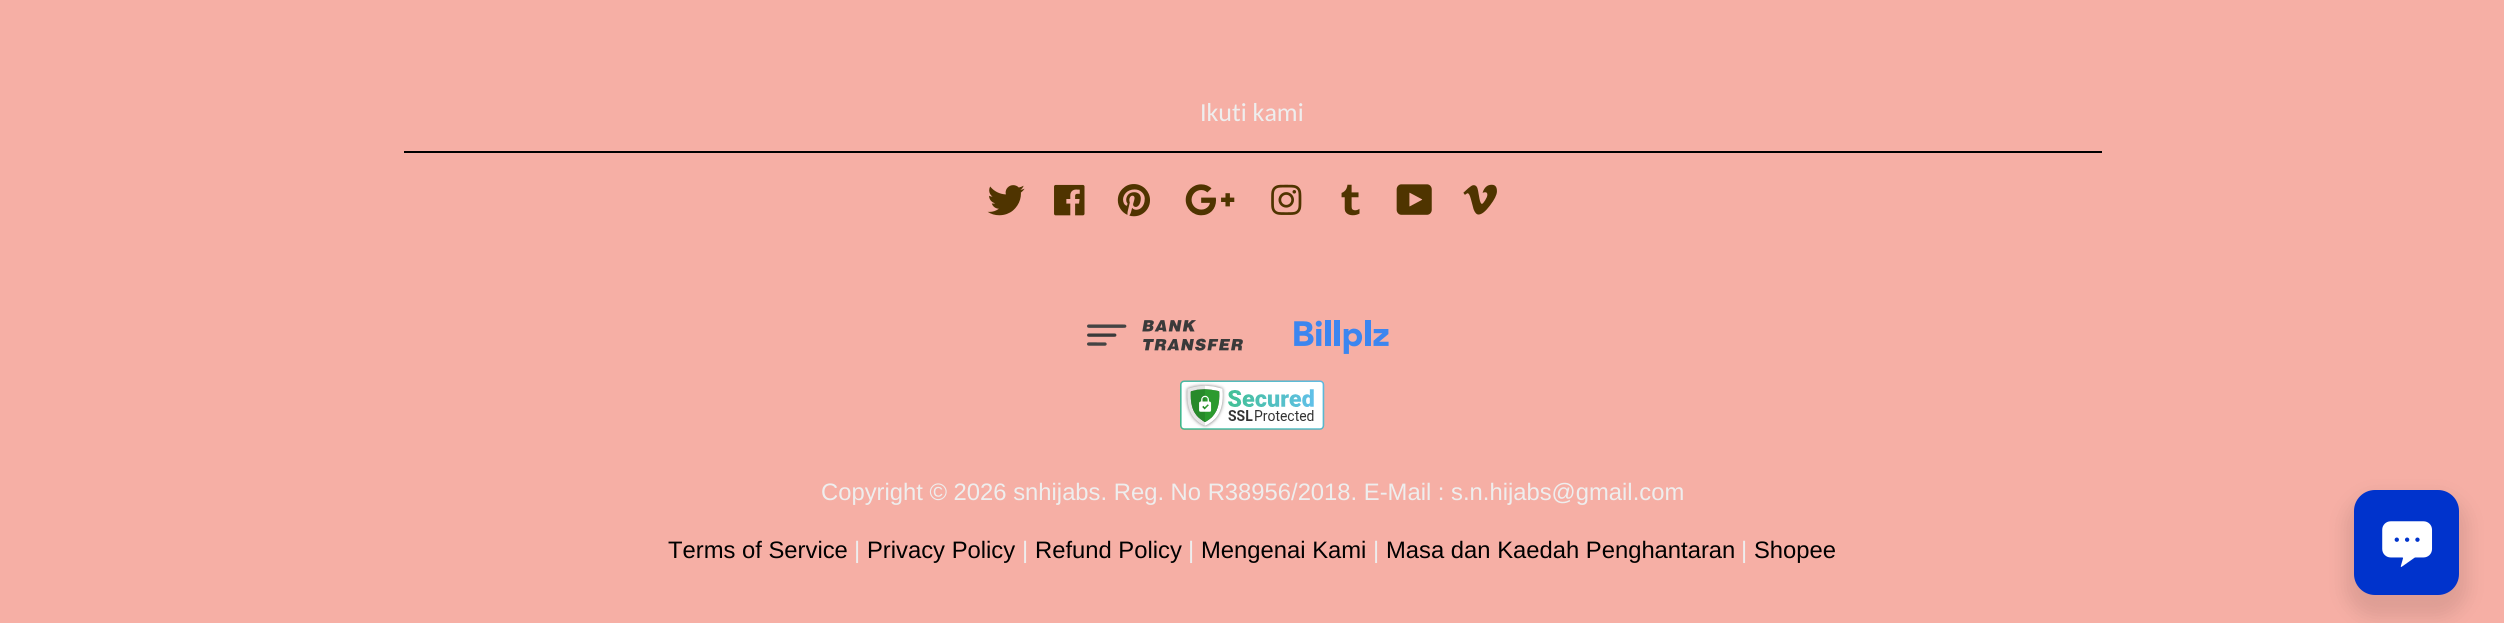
import math
import cairo


def use_color(cr, r, g, b):
  cr.set_source_rgb(r / 255, g / 255, b / 255)

def text(cr, x, y, s, family, size, color, bold=False, italic=False):
  cr.select_font_face(family, cairo.FONT_SLANT_ITALIC if italic else cairo.FONT_SLANT_NORMAL, cairo.FONT_WEIGHT_BOLD if bold else cairo.FONT_WEIGHT_NORMAL)
  cr.set_font_size(size)
  use_color(cr, *color)
  cr.move_to(x, y)
  cr.show_text(s)

def box(cr, x, y, w, h, *color):
  use_color(cr, *color)
  cr.rectangle(x, y, w, h)
  cr.fill()

def round_rect(cr, x, y, w, h, r):
  cr.new_sub_path()
  for i, (u, v) in enumerate([(x + w - r, y + h - r), (x + r, y + h - r), (x + r, y + r), (x + w - r, y + r)]):
    cr.arc(u, v, r, i * math.pi / 2, (i + 1) * math.pi / 2)
  cr.close_path()

def shadow(cr, x, y, w, h, r, blur, alpha):
  cr.push_group_with_content(cairo.CONTENT_ALPHA)
  cr.set_operator(cairo.OPERATOR_SOURCE)
  for i in range(15, -16, -2):
    e = blur * i / 6
    if min(w, h) + 2 * e > 0:
      cr.set_source_rgba(0, 0, 0, alpha * math.erfc((i - 1) / 8.5) / 2)
      round_rect(cr, x - e, y - e, w + 2 * e, h + 2 * e, max(0, min(r + e + blur * .6, min(w, h) / 2 + e)))
      cr.fill()
  cr.mask(cr.pop_group())

def picture(cr, path, x, y, w, h):
  cr.save()
  cr.set_source_surface(cairo.ImageSurface.create_from_png(path), x, y)
  cr.rectangle(x, y, w, h)
  cr.fill()
  cr.restore()

def draw(cr):
  use_color(cr, 246, 175, 165)
  cr.paint()
  box(cr, 404, 151, 1698, 2, 0, 0, 0)
  picture(cr, "img_01.png", 987, 185, 38, 31)
  picture(cr, "img_02.png", 1054, 184, 31, 32)
  picture(cr, "img_03.png", 1117, 184, 33, 33)
  picture(cr, "img_04.png", 1185, 184, 50, 32)
  picture(cr, "img_05.png", 1271, 184, 31, 31)
  picture(cr, "img_06.png", 1341, 184, 19, 32)
  picture(cr, "img_07.png", 1396, 184, 36, 31)
  picture(cr, "img_08.png", 1463, 184, 34, 31)
  picture(cr, "img_09.png", 1087, 320, 156, 31)
  picture(cr, "img_10.png", 1294, 320, 95, 34)
  picture(cr, "img_11.png", 1180, 380, 145, 50)
  use_color(cr, 0, 0, 0)
  shadow(cr, 2345, 495, 123, 123, 30, 9, 0.1)
  use_color(cr, 0, 51, 204)
  round_rect(cr, 2354, 490, 105, 105, 21)
  cr.fill()
  picture(cr, "img_12.png", 2382, 521, 51, 46)
  text(cr, 1200, 121, "Ikuti kami", "Carlito", 26, (238, 238, 238))
  text(cr, 821, 500, "Copyright © 2026 snhijabs. Reg. No R38956/2018. E-Mail : s.n.hijabs@gmail.com", "Liberation Sans", 23.8, (238, 238, 238))
  text(cr, 668, 558, "Terms of Service", "Liberation Sans", 23.8, (0, 0, 0))
  text(cr, 854, 558, "|", "Liberation Sans", 23.8, (238, 238, 238))
  text(cr, 867, 558, "Privacy Policy", "Liberation Sans", 23.8, (0, 0, 0))
  text(cr, 1022, 558, "|", "Liberation Sans", 23.8, (238, 238, 238))
  text(cr, 1035, 558, "Refund Policy", "Liberation Sans", 23.8, (0, 0, 0))
  text(cr, 1188, 558, "|", "Liberation Sans", 23.8, (238, 238, 238))
  text(cr, 1201, 558, "Mengenai Kami", "Liberation Sans", 23.8, (0, 0, 0))
  text(cr, 1373, 558, "|", "Liberation Sans", 23.8, (238, 238, 238))
  text(cr, 1386, 558, "Masa dan Kaedah Penghantaran", "Liberation Sans", 23.8, (0, 0, 0))
  text(cr, 1741, 558, "|", "Liberation Sans", 23.8, (238, 238, 238))
  text(cr, 1754, 558, "Shopee", "Liberation Sans", 23.8, (0, 0, 0))


surface = cairo.ImageSurface(cairo.FORMAT_RGB24, 2504, 623)
cr = cairo.Context(surface)
options = cairo.FontOptions()
options.set_hint_metrics(cairo.HINT_METRICS_OFF)
options.set_hint_style(cairo.HINT_STYLE_NONE)
cr.set_font_options(options)
cr.set_miter_limit(4)
draw(cr)
surface.write_to_png("out.png")
